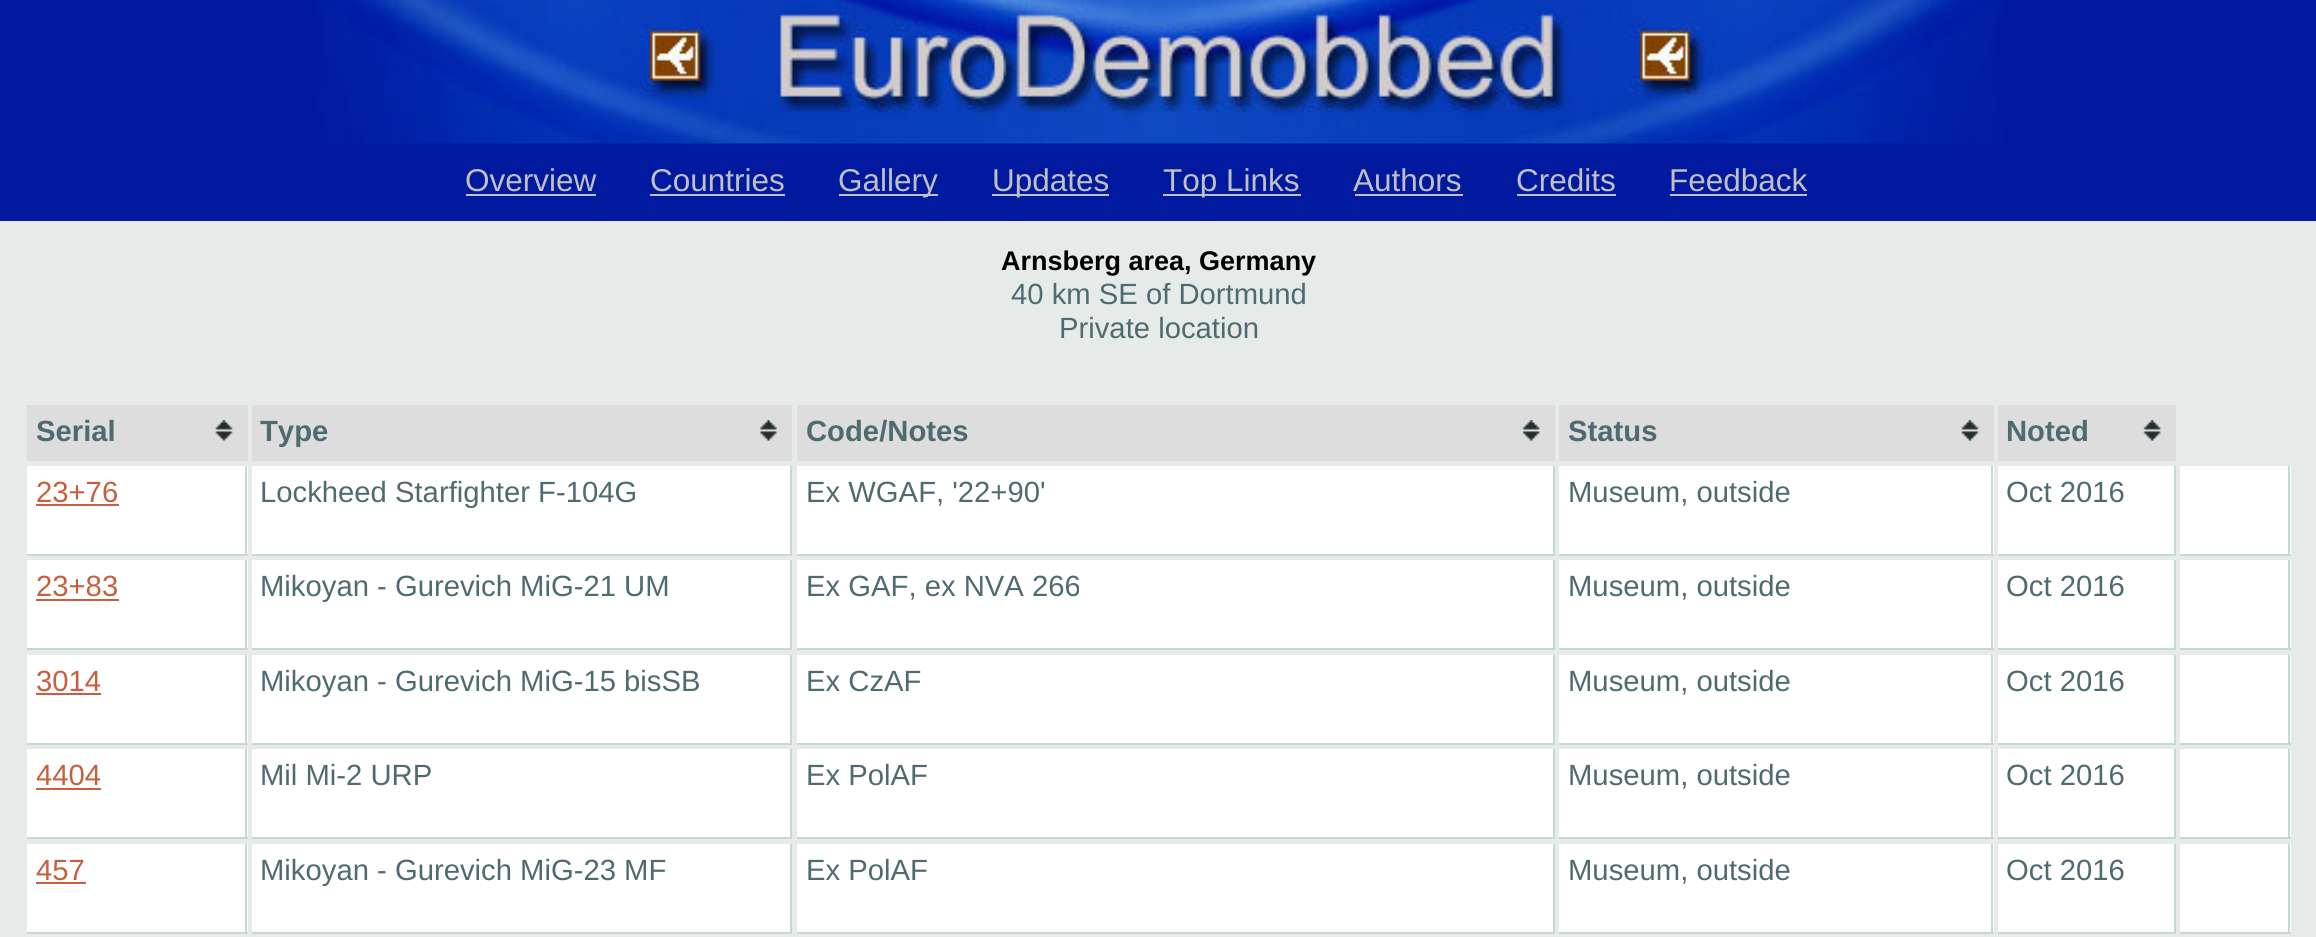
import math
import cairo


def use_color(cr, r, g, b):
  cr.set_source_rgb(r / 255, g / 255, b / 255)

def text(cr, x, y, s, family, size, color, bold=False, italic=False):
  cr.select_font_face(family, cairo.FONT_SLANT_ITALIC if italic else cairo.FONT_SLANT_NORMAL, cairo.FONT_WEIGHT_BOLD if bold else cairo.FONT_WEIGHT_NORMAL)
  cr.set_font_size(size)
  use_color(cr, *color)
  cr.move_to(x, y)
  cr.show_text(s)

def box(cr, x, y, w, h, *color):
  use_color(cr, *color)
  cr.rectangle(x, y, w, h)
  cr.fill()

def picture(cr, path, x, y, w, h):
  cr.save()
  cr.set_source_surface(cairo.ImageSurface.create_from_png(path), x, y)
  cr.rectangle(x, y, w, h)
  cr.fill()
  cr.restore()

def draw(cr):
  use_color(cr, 230, 234, 233)
  cr.paint()
  box(cr, 0, 0, 2316, 221, 1, 25, 158)
  picture(cr, "img_01.png", 314, 0, 1690, 144)
  box(cr, 466, 194, 130, 2, 192, 192, 192)
  box(cr, 650, 194, 135, 2, 192, 192, 192)
  box(cr, 839, 194, 99, 2, 192, 192, 192)
  box(cr, 992, 194, 117, 2, 192, 192, 192)
  box(cr, 1163, 194, 138, 2, 192, 192, 192)
  box(cr, 1355, 194, 108, 2, 192, 192, 192)
  box(cr, 1517, 194, 99, 2, 192, 192, 192)
  box(cr, 1670, 194, 137, 2, 192, 192, 192)
  box(cr, 27, 405, 221, 56, 221, 221, 221)
  picture(cr, "img_02.png", 215, 420, 18, 21)
  box(cr, 252, 405, 540, 56, 221, 221, 221)
  picture(cr, "img_03.png", 760, 420, 17, 21)
  box(cr, 797, 405, 758, 56, 221, 221, 221)
  picture(cr, "img_04.png", 1522, 420, 18, 21)
  box(cr, 1559, 405, 435, 56, 221, 221, 221)
  picture(cr, "img_02.png", 1961, 420, 18, 21)
  box(cr, 1998, 405, 178, 56, 221, 221, 221)
  picture(cr, "img_05.png", 2143, 420, 18, 21)
  box(cr, 27, 466, 221, 88, 255, 255, 255)
  box(cr, 245, 466, 2, 90, 193, 218, 215)
  box(cr, 27, 554, 221, 2, 193, 218, 215)
  box(cr, 36, 504, 83, 2, 199, 95, 62)
  box(cr, 252, 466, 538, 88, 255, 255, 255)
  box(cr, 790, 466, 2, 90, 193, 218, 215)
  box(cr, 252, 554, 540, 2, 193, 218, 215)
  box(cr, 797, 466, 756, 88, 255, 255, 255)
  box(cr, 1553, 466, 2, 90, 193, 218, 215)
  box(cr, 797, 554, 758, 2, 193, 218, 215)
  box(cr, 1559, 466, 435, 88, 255, 255, 255)
  box(cr, 1991, 466, 2, 90, 193, 218, 215)
  box(cr, 1559, 554, 435, 2, 193, 218, 215)
  box(cr, 1998, 466, 176, 88, 255, 255, 255)
  box(cr, 2174, 466, 2, 90, 193, 218, 215)
  box(cr, 1998, 554, 178, 2, 193, 218, 215)
  box(cr, 2180, 466, 111, 88, 255, 255, 255)
  box(cr, 2288, 466, 2, 90, 193, 218, 215)
  box(cr, 2180, 554, 111, 2, 193, 218, 215)
  box(cr, 27, 560, 221, 88, 255, 255, 255)
  box(cr, 245, 560, 2, 90, 193, 218, 215)
  box(cr, 27, 648, 221, 2, 193, 218, 215)
  box(cr, 36, 599, 83, 2, 199, 95, 62)
  box(cr, 252, 560, 538, 88, 255, 255, 255)
  box(cr, 790, 560, 2, 90, 193, 218, 215)
  box(cr, 252, 648, 540, 2, 193, 218, 215)
  box(cr, 797, 560, 756, 88, 255, 255, 255)
  box(cr, 1553, 560, 2, 90, 193, 218, 215)
  box(cr, 797, 648, 758, 2, 193, 218, 215)
  box(cr, 1559, 560, 435, 88, 255, 255, 255)
  box(cr, 1991, 560, 2, 90, 193, 218, 215)
  box(cr, 1559, 648, 435, 2, 193, 218, 215)
  box(cr, 1998, 560, 176, 88, 255, 255, 255)
  box(cr, 2174, 560, 2, 90, 193, 218, 215)
  box(cr, 1998, 648, 178, 2, 193, 218, 215)
  box(cr, 2180, 560, 111, 88, 255, 255, 255)
  box(cr, 2288, 560, 2, 90, 193, 218, 215)
  box(cr, 2180, 648, 111, 2, 193, 218, 215)
  box(cr, 27, 655, 221, 88, 255, 255, 255)
  box(cr, 245, 655, 2, 90, 193, 218, 215)
  box(cr, 27, 743, 221, 2, 193, 218, 215)
  box(cr, 36, 693, 65, 2, 199, 95, 62)
  box(cr, 252, 655, 538, 88, 255, 255, 255)
  box(cr, 790, 655, 2, 90, 193, 218, 215)
  box(cr, 252, 743, 540, 2, 193, 218, 215)
  box(cr, 797, 655, 756, 88, 255, 255, 255)
  box(cr, 1553, 655, 2, 90, 193, 218, 215)
  box(cr, 797, 743, 758, 2, 193, 218, 215)
  box(cr, 1559, 655, 435, 88, 255, 255, 255)
  box(cr, 1991, 655, 2, 90, 193, 218, 215)
  box(cr, 1559, 743, 435, 2, 193, 218, 215)
  box(cr, 1998, 655, 176, 88, 255, 255, 255)
  box(cr, 2174, 655, 2, 90, 193, 218, 215)
  box(cr, 1998, 743, 178, 2, 193, 218, 215)
  box(cr, 2180, 655, 111, 88, 255, 255, 255)
  box(cr, 2288, 655, 2, 90, 193, 218, 215)
  box(cr, 2180, 743, 111, 2, 193, 218, 215)
  box(cr, 27, 749, 221, 88, 255, 255, 255)
  box(cr, 245, 749, 2, 90, 193, 218, 215)
  box(cr, 27, 837, 221, 2, 193, 218, 215)
  box(cr, 36, 788, 65, 2, 199, 95, 62)
  box(cr, 252, 749, 538, 88, 255, 255, 255)
  box(cr, 790, 749, 2, 90, 193, 218, 215)
  box(cr, 252, 837, 540, 2, 193, 218, 215)
  box(cr, 797, 749, 756, 88, 255, 255, 255)
  box(cr, 1553, 749, 2, 90, 193, 218, 215)
  box(cr, 797, 837, 758, 2, 193, 218, 215)
  box(cr, 1559, 749, 435, 88, 255, 255, 255)
  box(cr, 1991, 749, 2, 90, 193, 218, 215)
  box(cr, 1559, 837, 435, 2, 193, 218, 215)
  box(cr, 1998, 749, 176, 88, 255, 255, 255)
  box(cr, 2174, 749, 2, 90, 193, 218, 215)
  box(cr, 1998, 837, 178, 2, 193, 218, 215)
  box(cr, 2180, 749, 111, 88, 255, 255, 255)
  box(cr, 2288, 749, 2, 90, 193, 218, 215)
  box(cr, 2180, 837, 111, 2, 193, 218, 215)
  box(cr, 27, 844, 221, 88, 255, 255, 255)
  box(cr, 245, 844, 2, 90, 193, 218, 215)
  box(cr, 27, 932, 221, 2, 193, 218, 215)
  box(cr, 36, 882, 50, 2, 199, 95, 62)
  box(cr, 252, 844, 538, 88, 255, 255, 255)
  box(cr, 790, 844, 2, 90, 193, 218, 215)
  box(cr, 252, 932, 540, 2, 193, 218, 215)
  box(cr, 797, 844, 756, 88, 255, 255, 255)
  box(cr, 1553, 844, 2, 90, 193, 218, 215)
  box(cr, 797, 932, 758, 2, 193, 218, 215)
  box(cr, 1559, 844, 435, 88, 255, 255, 255)
  box(cr, 1991, 844, 2, 90, 193, 218, 215)
  box(cr, 1559, 932, 435, 2, 193, 218, 215)
  box(cr, 1998, 844, 176, 88, 255, 255, 255)
  box(cr, 2174, 844, 2, 90, 193, 218, 215)
  box(cr, 1998, 932, 178, 2, 193, 218, 215)
  box(cr, 2180, 844, 111, 88, 255, 255, 255)
  box(cr, 2288, 844, 2, 90, 193, 218, 215)
  box(cr, 2180, 932, 111, 2, 193, 218, 215)
  text(cr, 465, 191, "Overview", "Liberation Sans", 31.5, (192, 192, 192))
  text(cr, 650, 191, "Countries", "Liberation Sans", 31.5, (192, 192, 192))
  text(cr, 838, 191, "Gallery", "Liberation Sans", 31.5, (192, 192, 192))
  text(cr, 992, 191, "Updates", "Liberation Sans", 31.5, (192, 192, 192))
  text(cr, 1163, 191, "Top Links", "Liberation Sans", 31.5, (192, 192, 192))
  text(cr, 1353, 191, "Authors", "Liberation Sans", 31.5, (192, 192, 192))
  text(cr, 1516, 191, "Credits", "Liberation Sans", 31.5, (192, 192, 192))
  text(cr, 1669, 191, "Feedback", "Liberation Sans", 31.5, (192, 192, 192))
  text(cr, 1001, 270, "Arnsberg area, Germany", "Liberation Sans", 27, (0, 0, 0), bold=True)
  text(cr, 1011, 304, "40 km SE of Dortmund", "Liberation Sans", 29.25, (79, 107, 114))
  text(cr, 1059, 338, "Private location", "Liberation Sans", 29.25, (79, 107, 114))
  text(cr, 36, 441, "Serial", "Liberation Sans", 29.25, (79, 107, 114), bold=True)
  text(cr, 260, 441, "Type", "Liberation Sans", 29.25, (79, 107, 114), bold=True)
  text(cr, 806, 441, "Code/Notes", "Liberation Sans", 29.25, (79, 107, 114), bold=True)
  text(cr, 1568, 441, "Status", "Liberation Sans", 29.25, (79, 107, 114), bold=True)
  text(cr, 2006, 441, "Noted", "Liberation Sans", 29.25, (79, 107, 114), bold=True)
  text(cr, 36, 502, "23+76", "Liberation Sans", 29.25, (199, 95, 62))
  text(cr, 260, 502, "Lockheed Starfighter F-104G", "Liberation Sans", 29.25, (79, 107, 114))
  text(cr, 806, 502, "Ex WGAF, '22+90'", "Liberation Sans", 29.25, (79, 107, 114))
  text(cr, 1568, 502, "Museum, outside", "Liberation Sans", 29.25, (79, 107, 114))
  text(cr, 2006, 502, "Oct 2016", "Liberation Sans", 29.25, (79, 107, 114))
  text(cr, 36, 596, "23+83", "Liberation Sans", 29.25, (199, 95, 62))
  text(cr, 260, 596, "Mikoyan - Gurevich MiG-21 UM", "Liberation Sans", 29.25, (79, 107, 114))
  text(cr, 806, 596, "Ex GAF, ex NVA 266", "Liberation Sans", 29.25, (79, 107, 114))
  text(cr, 1568, 596, "Museum, outside", "Liberation Sans", 29.25, (79, 107, 114))
  text(cr, 2006, 596, "Oct 2016", "Liberation Sans", 29.25, (79, 107, 114))
  text(cr, 36, 691, "3014", "Liberation Sans", 29.25, (199, 95, 62))
  text(cr, 260, 691, "Mikoyan - Gurevich MiG-15 bisSB", "Liberation Sans", 29.25, (79, 107, 114))
  text(cr, 806, 691, "Ex CzAF", "Liberation Sans", 29.25, (79, 107, 114))
  text(cr, 1568, 691, "Museum, outside", "Liberation Sans", 29.25, (79, 107, 114))
  text(cr, 2006, 691, "Oct 2016", "Liberation Sans", 29.25, (79, 107, 114))
  text(cr, 36, 785, "4404", "Liberation Sans", 29.25, (199, 95, 62))
  text(cr, 260, 785, "Mil Mi-2 URP", "Liberation Sans", 29.25, (79, 107, 114))
  text(cr, 806, 785, "Ex PolAF", "Liberation Sans", 29.25, (79, 107, 114))
  text(cr, 1568, 785, "Museum, outside", "Liberation Sans", 29.25, (79, 107, 114))
  text(cr, 2006, 785, "Oct 2016", "Liberation Sans", 29.25, (79, 107, 114))
  text(cr, 36, 880, "457", "Liberation Sans", 29.25, (199, 95, 62))
  text(cr, 260, 880, "Mikoyan - Gurevich MiG-23 MF", "Liberation Sans", 29.25, (79, 107, 114))
  text(cr, 806, 880, "Ex PolAF", "Liberation Sans", 29.25, (79, 107, 114))
  text(cr, 1568, 880, "Museum, outside", "Liberation Sans", 29.25, (79, 107, 114))
  text(cr, 2006, 880, "Oct 2016", "Liberation Sans", 29.25, (79, 107, 114))


surface = cairo.ImageSurface(cairo.FORMAT_RGB24, 2316, 937)
cr = cairo.Context(surface)
options = cairo.FontOptions()
options.set_hint_metrics(cairo.HINT_METRICS_OFF)
options.set_hint_style(cairo.HINT_STYLE_NONE)
cr.set_font_options(options)
cr.set_miter_limit(4)
draw(cr)
surface.write_to_png("out.png")
